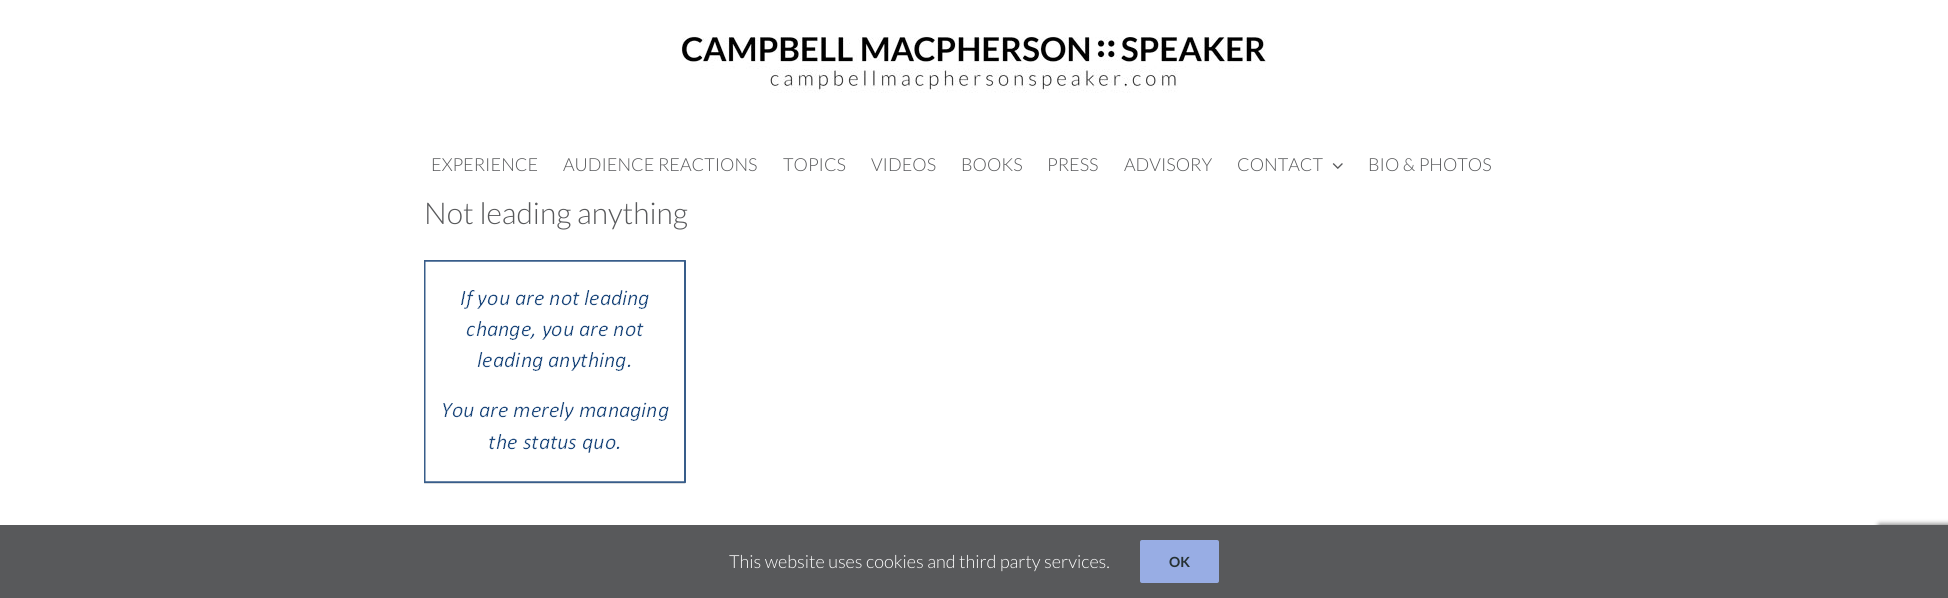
import math
import cairo


def use_color(cr, r, g, b):
  cr.set_source_rgb(r / 255, g / 255, b / 255)

def text(cr, x, y, s, family, size, color, bold=False, italic=False):
  cr.select_font_face(family, cairo.FONT_SLANT_ITALIC if italic else cairo.FONT_SLANT_NORMAL, cairo.FONT_WEIGHT_BOLD if bold else cairo.FONT_WEIGHT_NORMAL)
  cr.set_font_size(size)
  use_color(cr, *color)
  cr.move_to(x, y)
  cr.show_text(s)

def box(cr, x, y, w, h, *color):
  use_color(cr, *color)
  cr.rectangle(x, y, w, h)
  cr.fill()

def round_rect(cr, x, y, w, h, r):
  cr.new_sub_path()
  for i, (u, v) in enumerate([(x + w - r, y + h - r), (x + r, y + h - r), (x + r, y + r), (x + w - r, y + r)]):
    cr.arc(u, v, r, i * math.pi / 2, (i + 1) * math.pi / 2)
  cr.close_path()

def shadow(cr, x, y, w, h, r, blur, alpha):
  cr.push_group_with_content(cairo.CONTENT_ALPHA)
  cr.set_operator(cairo.OPERATOR_SOURCE)
  for i in range(15, -16, -2):
    e = blur * i / 6
    if min(w, h) + 2 * e > 0:
      cr.set_source_rgba(0, 0, 0, alpha * math.erfc((i - 1) / 8.5) / 2)
      round_rect(cr, x - e, y - e, w + 2 * e, h + 2 * e, max(0, min(r + e + blur * .6, min(w, h) / 2 + e)))
      cr.fill()
  cr.mask(cr.pop_group())

def picture(cr, path, x, y, w, h):
  cr.save()
  cr.set_source_surface(cairo.ImageSurface.create_from_png(path), x, y)
  cr.rectangle(x, y, w, h)
  cr.fill()
  cr.restore()

def draw(cr):
  use_color(cr, 255, 255, 255)
  cr.paint()
  picture(cr, "img_01.png", 681, 36, 585, 57)
  picture(cr, "img_02.png", 1332, 163, 11, 6)
  picture(cr, "img_03.png", 424, 260, 262, 224)
  use_color(cr, 128, 128, 128)
  shadow(cr, 1878, 524, 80, 60, 2, 2.5, 1)
  box(cr, 0, 525, 1948, 73, 88, 89, 91)
  use_color(cr, 152, 173, 228)
  round_rect(cr, 1140, 540, 79, 43, 2)
  cr.fill()
  text(cr, 431, 171, "EXPERIENCE", "Lato Light", 18, (88, 89, 91))
  text(cr, 563, 171, "AUDIENCE REACTIONS", "Lato Light", 18, (88, 89, 91))
  text(cr, 783, 171, "TOPICS", "Lato Light", 18, (88, 89, 91))
  text(cr, 871, 171, "VIDEOS", "Lato Light", 18, (88, 89, 91))
  text(cr, 961, 171, "BOOKS", "Lato Light", 18, (88, 89, 91))
  text(cr, 1047, 171, "PRESS", "Lato Light", 18, (88, 89, 91))
  text(cr, 1124, 171, "ADVISORY", "Lato Light", 18, (88, 89, 91))
  text(cr, 1237, 171, "CONTACT", "Lato Light", 18, (88, 89, 91))
  text(cr, 1368, 171, "BIO & PHOTOS", "Lato Light", 18, (88, 89, 91))
  text(cr, 424, 224, "Not leading anything", "Lato Light", 30, (88, 89, 91))
  text(cr, 729, 568, "This website uses cookies and third party services.", "Lato Light", 18, (255, 255, 255))
  text(cr, 1169, 567, "OK", "Lato", 14, (38, 49, 51), bold=True)


surface = cairo.ImageSurface(cairo.FORMAT_RGB24, 1948, 598)
cr = cairo.Context(surface)
options = cairo.FontOptions()
options.set_hint_metrics(cairo.HINT_METRICS_OFF)
options.set_hint_style(cairo.HINT_STYLE_NONE)
cr.set_font_options(options)
cr.set_miter_limit(4)
draw(cr)
surface.write_to_png("out.png")
